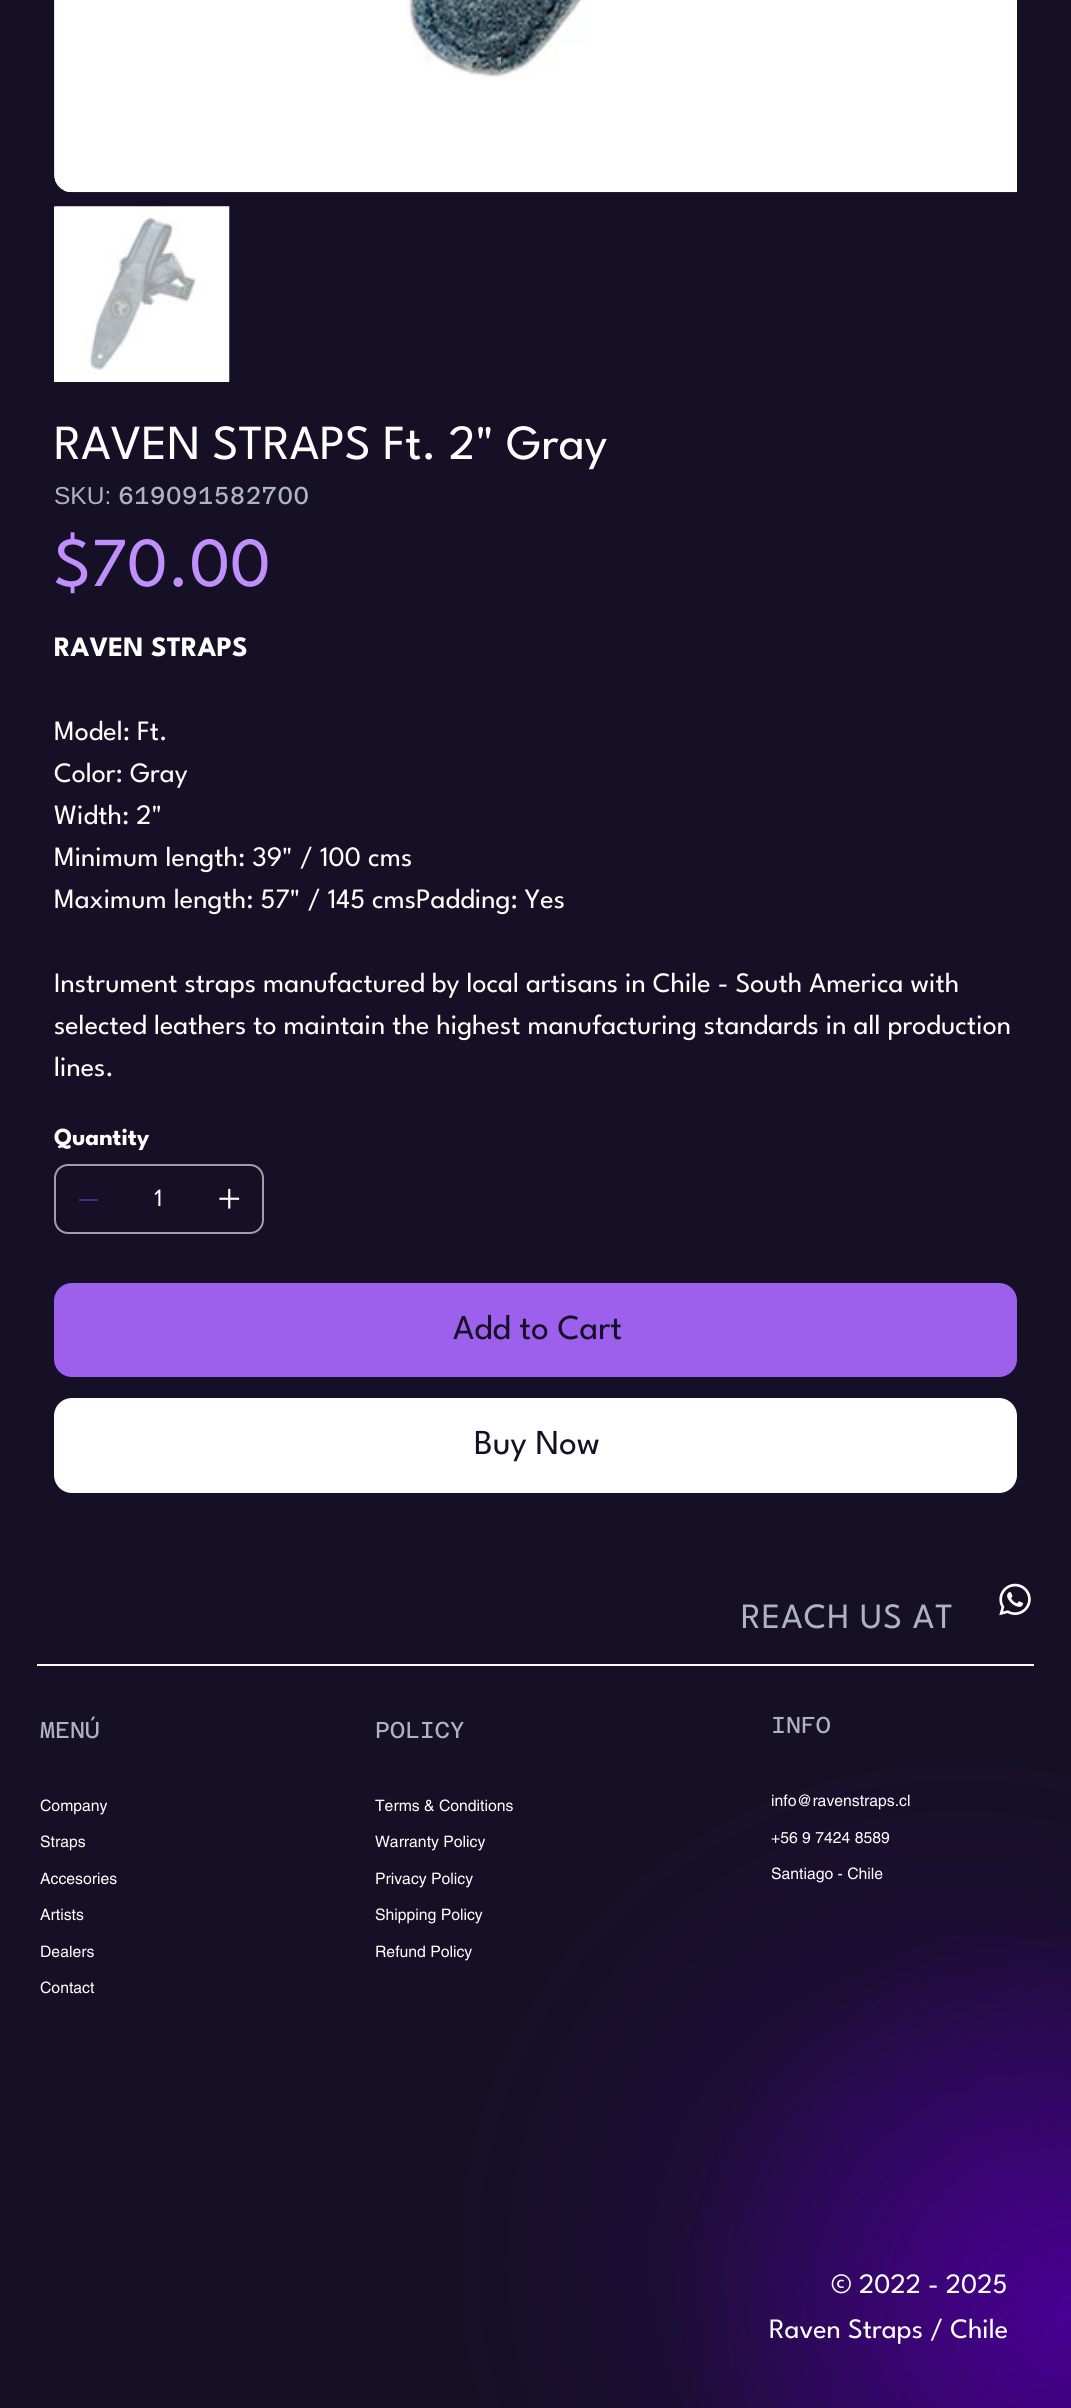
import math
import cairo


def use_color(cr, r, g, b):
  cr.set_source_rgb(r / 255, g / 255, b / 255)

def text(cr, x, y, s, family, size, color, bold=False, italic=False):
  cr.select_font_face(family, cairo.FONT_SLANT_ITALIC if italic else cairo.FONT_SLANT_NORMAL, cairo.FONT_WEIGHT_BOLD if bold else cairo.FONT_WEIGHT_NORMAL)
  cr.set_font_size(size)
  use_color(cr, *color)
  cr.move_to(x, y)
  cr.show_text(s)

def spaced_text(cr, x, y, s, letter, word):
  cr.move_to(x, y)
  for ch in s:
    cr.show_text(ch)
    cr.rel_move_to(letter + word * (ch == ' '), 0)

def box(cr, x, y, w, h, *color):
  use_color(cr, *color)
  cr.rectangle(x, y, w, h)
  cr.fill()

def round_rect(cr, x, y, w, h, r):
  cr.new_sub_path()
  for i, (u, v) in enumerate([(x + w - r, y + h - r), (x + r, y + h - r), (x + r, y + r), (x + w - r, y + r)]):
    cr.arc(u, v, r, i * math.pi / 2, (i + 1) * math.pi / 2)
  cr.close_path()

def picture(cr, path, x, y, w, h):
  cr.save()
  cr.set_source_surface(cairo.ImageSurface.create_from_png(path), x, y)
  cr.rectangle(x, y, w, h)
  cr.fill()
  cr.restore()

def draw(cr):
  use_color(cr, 21, 16, 37)
  cr.paint()
  picture(cr, "img_01.png", 54, 0, 963, 193)
  picture(cr, "img_02.png", 54, 0, 963, 192)
  box(cr, 54, 207, 175, 175, 255, 255, 255)
  picture(cr, "img_03.png", 54, 206, 176, 176)
  round_rect(cr, 55, 1165, 208, 68, 13)
  use_color(cr, 161, 159, 168)
  cr.stroke()
  box(cr, 79, 1199, 19, 2, 66, 45, 126)
  picture(cr, "img_04.png", 219, 1188, 21, 21)
  use_color(cr, 157, 96, 236)
  round_rect(cr, 54, 1283, 963, 94, 18)
  cr.fill()
  use_color(cr, 255, 255, 255)
  round_rect(cr, 54, 1398, 963, 95, 18)
  cr.fill()
  picture(cr, "img_05.png", 999, 1583, 32, 33)
  box(cr, 37, 1664, 997, 2, 255, 255, 255)
  gradient = cairo.RadialGradient(1071, 2314, 0, 1071, 2314, 1304)
  gradient.add_color_stop_rgba(0, 0.286, 0, 0.58, 1)
  gradient.add_color_stop_rgba(0.31, 0.082, 0.063, 0.145, 1)
  cr.set_source(gradient)
  cr.rectangle(677, 1919, 394, 489)
  cr.fill()
  gradient = cairo.RadialGradient(958, 2261, 0, 958, 2261, 1182)
  gradient.add_color_stop_rgba(0, 0.286, 0, 0.58, 0.31)
  gradient.add_color_stop_rgba(0.45, 0.286, 0, 0.58, 0)
  cr.set_source(gradient)
  cr.rectangle(464, 1767, 607, 641)
  cr.fill()
  text(cr, 54, 459, "RAVEN STRAPS Ft. 2\" Gray", "League Spartan", 49, (255, 255, 255))
  text(cr, 54, 504, "SKU:", "Liberation Sans", 24.5, (173, 180, 193))
  text(cr, 118, 504, "619091582700", "Azeret Mono", 24.5, (173, 180, 193))
  text(cr, 54, 586, "$70.00", "League Spartan", 70, (191, 144, 251))
  text(cr, 54, 656, "RAVEN STRAPS", "League Spartan", 28, (255, 255, 255), bold=True)
  text(cr, 54, 740, "Model: Ft.", "League Spartan", 28, (255, 255, 255))
  text(cr, 54, 782, "Color: Gray", "League Spartan", 28, (255, 255, 255))
  text(cr, 54, 824, "Width: 2\"", "League Spartan", 28, (255, 255, 255))
  text(cr, 54, 866, "Minimum length: 39\" / 100 cms", "League Spartan", 28, (255, 255, 255))
  text(cr, 54, 908, "Maximum length: 57\" / 145 cmsPadding: Yes", "League Spartan", 28, (255, 255, 255))
  text(cr, 54, 992, "Instrument straps manufactured by local artisans in Chile - South America with", "League Spartan", 28, (255, 255, 255))
  text(cr, 54, 1034, "selected leathers to maintain the highest manufacturing standards in all production", "League Spartan", 28, (255, 255, 255))
  text(cr, 54, 1076, "lines.", "League Spartan", 28, (255, 255, 255))
  text(cr, 54, 1145, "Quantity", "League Spartan", 24.5, (255, 255, 255), bold=True)
  text(cr, 154, 1206, "1", "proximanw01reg", 24.5, (255, 255, 255))
  text(cr, 453, 1339, "Add to Cart", "League Spartan", 35, (21, 16, 37))
  text(cr, 474, 1454, "Buy Now", "League Spartan", 35, (21, 16, 37))
  cr.set_font_size(35.5)
  use_color(cr, 173, 180, 193)
  spaced_text(cr, 741, 1628, "REACH US AT", 1, 0)
  text(cr, 40, 1738, "MENÚ", "Azeret Mono", 23, (173, 180, 193))
  text(cr, 40, 1811, "Company", "helvetica", 15.75, (255, 255, 255))
  text(cr, 40, 1847, "Straps", "helvetica", 15.75, (255, 255, 255))
  text(cr, 40, 1884, "Accesories", "helvetica", 15.75, (255, 255, 255))
  text(cr, 40, 1920, "Artists", "helvetica", 15.75, (255, 255, 255))
  text(cr, 40, 1957, "Dealers", "helvetica", 15.75, (255, 255, 255))
  text(cr, 40, 1993, "Contact", "helvetica", 15.75, (255, 255, 255))
  text(cr, 375, 1738, "POLICY", "Azeret Mono", 23, (173, 180, 193))
  text(cr, 375, 1811, "Terms & Conditions", "helvetica", 15.75, (255, 255, 255))
  text(cr, 375, 1847, "Warranty Policy", "helvetica", 15.75, (255, 255, 255))
  text(cr, 375, 1884, "Privacy Policy", "helvetica", 15.75, (255, 255, 255))
  text(cr, 375, 1920, "Shipping Policy", "helvetica", 15.75, (255, 255, 255))
  text(cr, 375, 1957, "Refund Policy", "helvetica", 15.75, (255, 255, 255))
  text(cr, 771, 1733, "INFO", "Azeret Mono", 23, (173, 180, 193))
  text(cr, 771, 1806, "info@ravenstraps.cl", "helvetica", 15.75, (255, 255, 255))
  text(cr, 771, 1843, "+56 9 7424 8589", "helvetica", 15.75, (255, 255, 255))
  text(cr, 771, 1879, "Santiago - Chile", "helvetica", 15.75, (255, 255, 255))
  text(cr, 831, 2293, "© 2022 - 2025", "League Spartan", 28, (255, 255, 255))
  text(cr, 769, 2338, "Raven Straps / Chile", "League Spartan", 28, (255, 255, 255))


surface = cairo.ImageSurface(cairo.FORMAT_RGB24, 1071, 2408)
cr = cairo.Context(surface)
options = cairo.FontOptions()
options.set_hint_metrics(cairo.HINT_METRICS_OFF)
options.set_hint_style(cairo.HINT_STYLE_NONE)
cr.set_font_options(options)
cr.set_miter_limit(4)
draw(cr)
surface.write_to_png("out.png")
